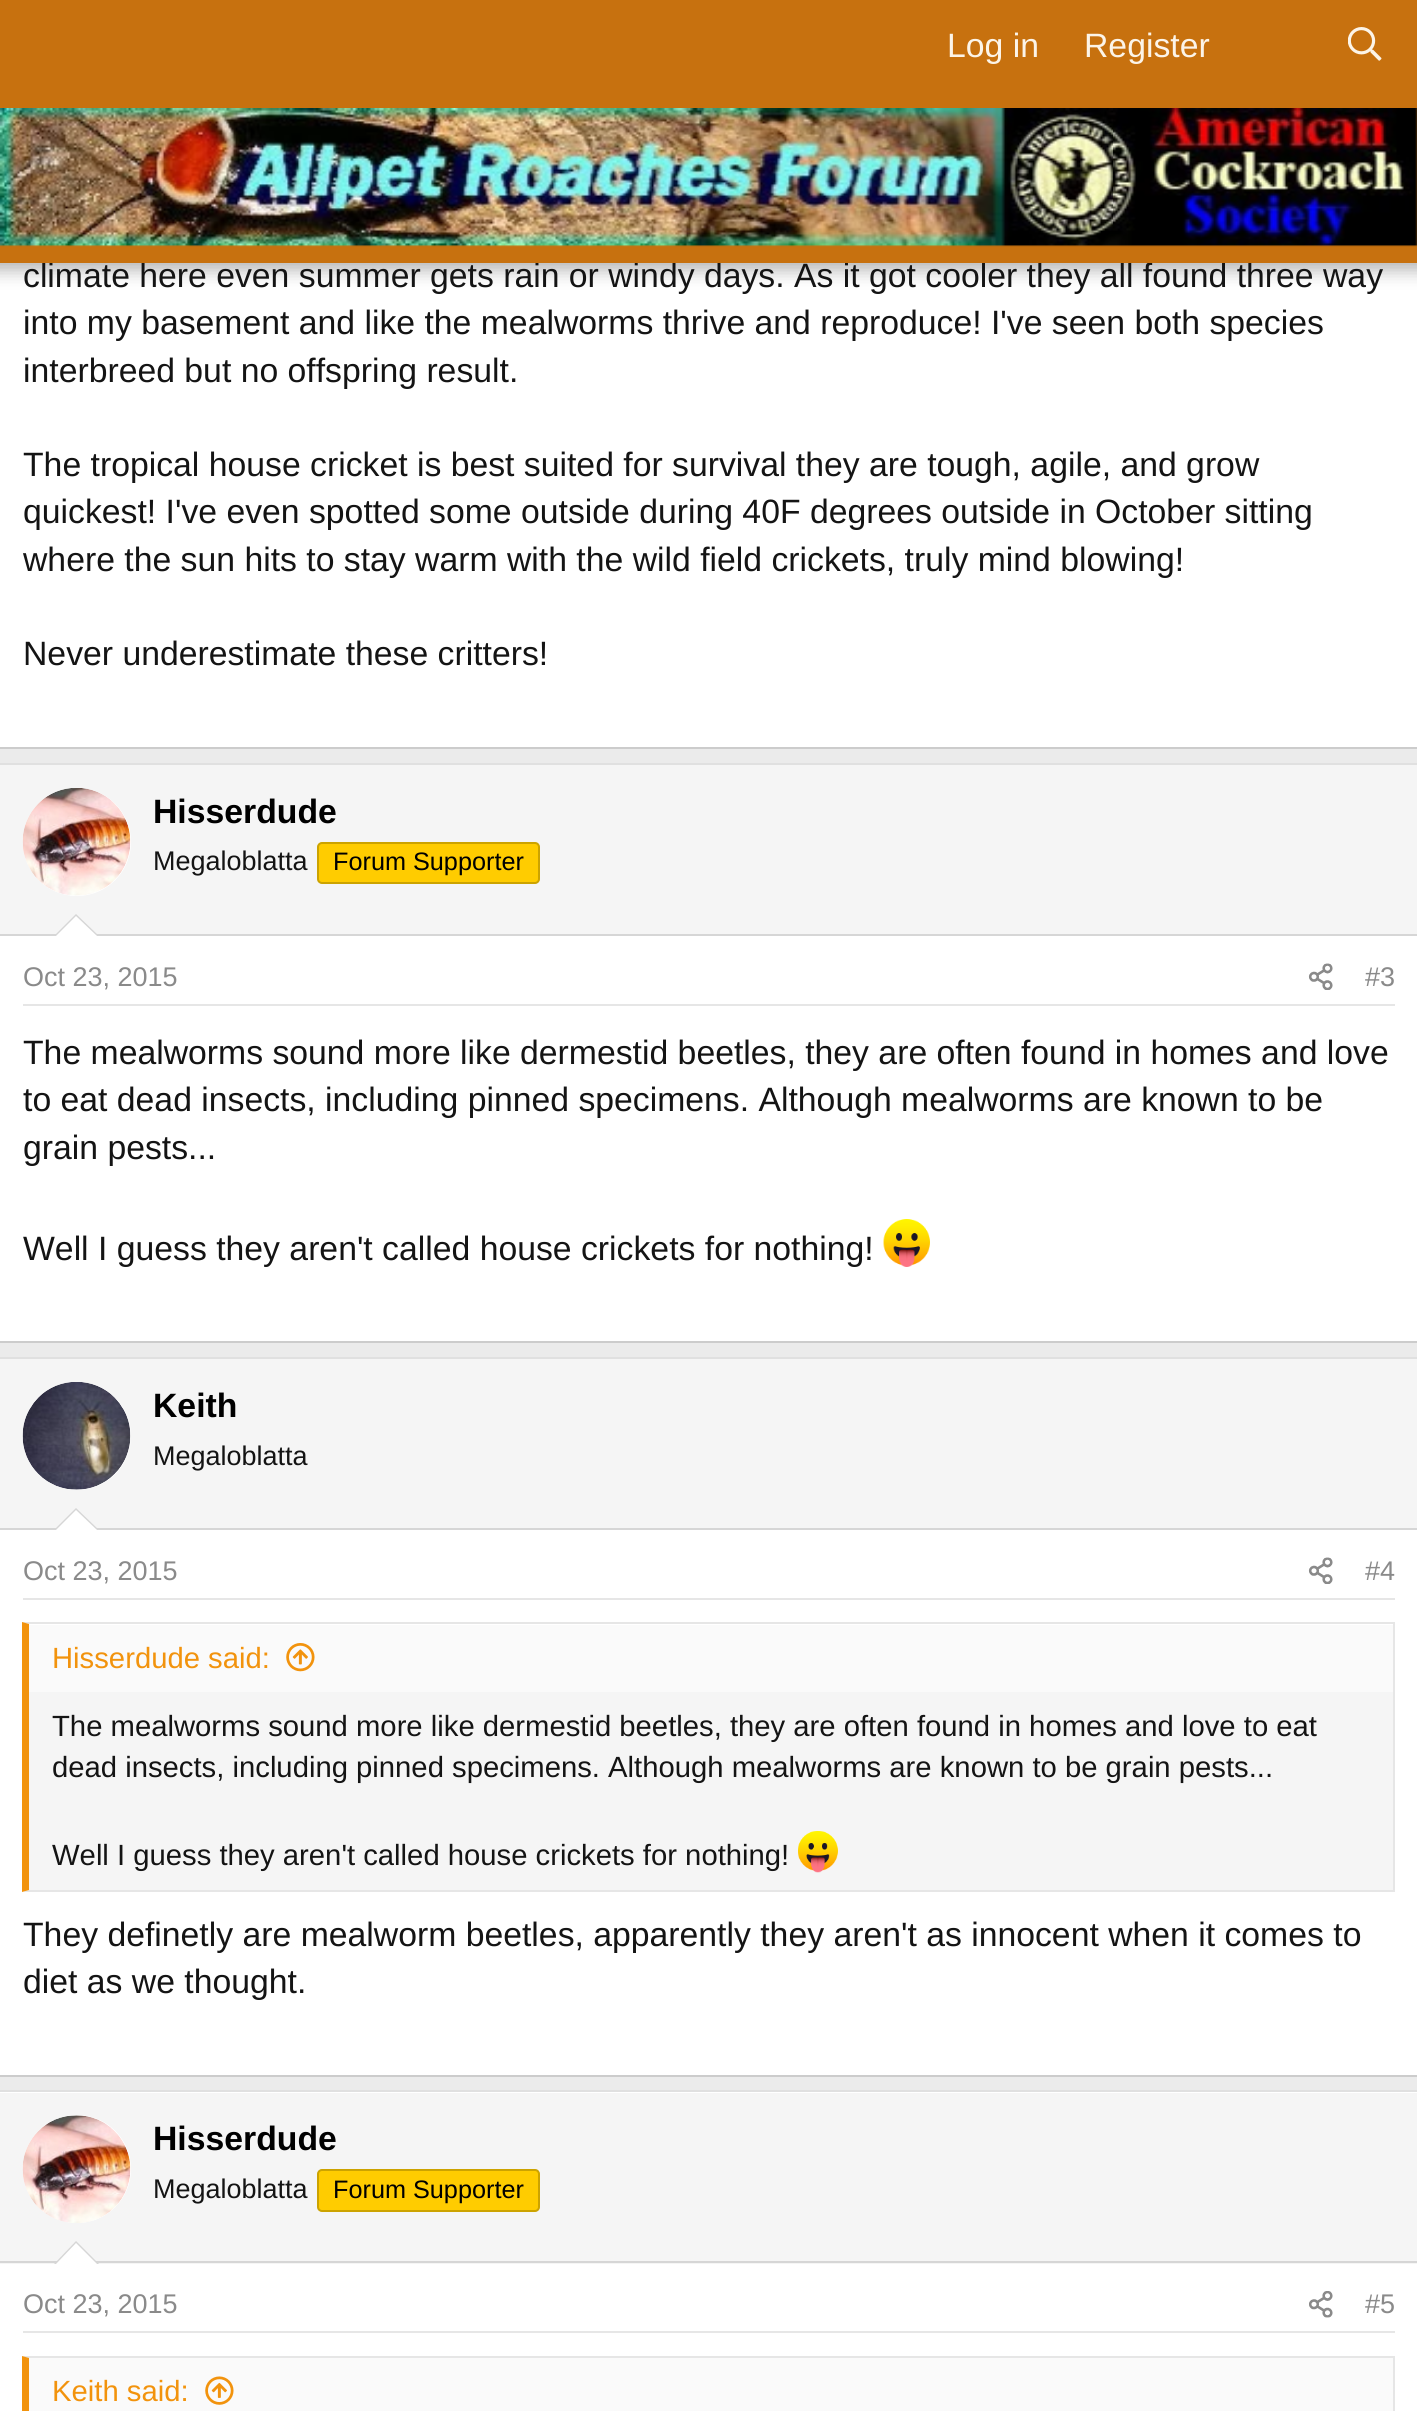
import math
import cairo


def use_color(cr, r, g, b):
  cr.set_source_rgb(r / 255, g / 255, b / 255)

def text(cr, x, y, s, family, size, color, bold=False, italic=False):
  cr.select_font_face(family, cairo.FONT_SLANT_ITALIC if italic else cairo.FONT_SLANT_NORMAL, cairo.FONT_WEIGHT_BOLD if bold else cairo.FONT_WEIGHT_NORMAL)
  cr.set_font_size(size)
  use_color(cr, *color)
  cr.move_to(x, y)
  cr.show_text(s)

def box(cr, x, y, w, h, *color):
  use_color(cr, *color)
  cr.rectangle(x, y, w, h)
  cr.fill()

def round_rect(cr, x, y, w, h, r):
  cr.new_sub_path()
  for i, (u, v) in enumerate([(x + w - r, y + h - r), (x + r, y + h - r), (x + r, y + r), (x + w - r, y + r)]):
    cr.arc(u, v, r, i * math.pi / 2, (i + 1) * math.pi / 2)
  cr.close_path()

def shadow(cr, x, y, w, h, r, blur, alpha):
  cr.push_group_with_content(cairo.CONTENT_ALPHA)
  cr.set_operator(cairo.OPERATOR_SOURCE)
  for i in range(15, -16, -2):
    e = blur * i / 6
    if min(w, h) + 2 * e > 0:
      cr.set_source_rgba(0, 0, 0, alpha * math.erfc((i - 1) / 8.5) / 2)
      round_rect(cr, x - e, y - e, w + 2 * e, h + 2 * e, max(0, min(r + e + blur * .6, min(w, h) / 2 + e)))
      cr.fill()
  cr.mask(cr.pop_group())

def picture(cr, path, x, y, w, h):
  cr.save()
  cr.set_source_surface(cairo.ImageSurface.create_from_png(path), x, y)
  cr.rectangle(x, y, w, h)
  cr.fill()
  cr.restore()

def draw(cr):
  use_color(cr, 235, 235, 235)
  cr.paint()
  box(cr, 0, 263, 1417, 484, 255, 255, 255)
  use_color(cr, 0, 0, 0)
  shadow(cr, -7, -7, 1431, 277, 0, 9, 0.3)
  box(cr, 0, 747, 1417, 2, 204, 204, 204)
  box(cr, 0, 936, 1417, 405, 255, 255, 255)
  box(cr, 0, 763, 1417, 2, 224, 224, 224)
  box(cr, 0, 1341, 1417, 2, 204, 204, 204)
  box(cr, 0, 765, 1417, 169, 245, 245, 245)
  box(cr, 0, 934, 1417, 2, 214, 214, 214)
  use_color(cr, 255, 255, 255)
  cr.arc(77, 842, 54, 0, 2 * math.pi)
  cr.fill()
  picture(cr, "img_03.png", 22, 788, 109, 108)
  use_color(cr, 255, 204, 0)
  round_rect(cr, 318, 843, 221, 40, 4)
  cr.fill_preserve()
  use_color(cr, 204, 163, 0)
  cr.stroke()
  use_color(cr, 214, 214, 214)
  cr.new_path()
  cr.move_to(99, 936)
  cr.line_to(54, 936)
  cr.line_to(76, 914)
  cr.close_path()
  cr.fill()
  use_color(cr, 255, 255, 255)
  cr.new_path()
  cr.move_to(97, 936)
  cr.line_to(56, 936)
  cr.line_to(76, 916)
  cr.close_path()
  cr.fill()
  box(cr, 23, 1004, 1372, 2, 230, 230, 230)
  picture(cr, "img_04.png", 1308, 963, 25, 27)
  picture(cr, "img_05.png", 883, 1219, 47, 48)
  box(cr, 0, 1530, 1417, 545, 255, 255, 255)
  box(cr, 0, 1357, 1417, 2, 224, 224, 224)
  box(cr, 0, 2075, 1417, 2, 204, 204, 204)
  box(cr, 0, 1359, 1417, 169, 245, 245, 245)
  box(cr, 0, 1528, 1417, 2, 214, 214, 214)
  use_color(cr, 255, 255, 255)
  cr.arc(77, 1436, 54, 0, 2 * math.pi)
  cr.fill()
  picture(cr, "img_06.png", 22, 1382, 109, 108)
  use_color(cr, 214, 214, 214)
  cr.new_path()
  cr.move_to(99, 1530)
  cr.line_to(54, 1530)
  cr.line_to(76, 1508)
  cr.close_path()
  cr.fill()
  use_color(cr, 255, 255, 255)
  cr.new_path()
  cr.move_to(97, 1530)
  cr.line_to(56, 1530)
  cr.line_to(76, 1510)
  cr.close_path()
  cr.fill()
  box(cr, 23, 1598, 1372, 2, 230, 230, 230)
  picture(cr, "img_04.png", 1308, 1557, 25, 27)
  box(cr, 29, 1692, 1364, 198, 245, 245, 245)
  use_color(cr, 230, 230, 230)
  cr.new_path()
  cr.move_to(22, 1622)
  cr.line_to(1395, 1622)
  cr.line_to(1393, 1624)
  cr.line_to(29, 1624)
  cr.close_path()
  cr.fill()
  box(cr, 1393, 1622, 2, 270, 230, 230, 230)
  cr.new_path()
  cr.move_to(1395, 1892)
  cr.line_to(22, 1892)
  cr.line_to(29, 1890)
  cr.line_to(1393, 1890)
  cr.close_path()
  cr.fill()
  use_color(cr, 242, 147, 13)
  cr.new_path()
  cr.move_to(22, 1892)
  cr.line_to(22, 1622)
  cr.line_to(29, 1624)
  cr.line_to(29, 1890)
  cr.close_path()
  cr.fill()
  box(cr, 29, 1625, 1364, 67, 250, 250, 250)
  picture(cr, "img_07.png", 286, 1643, 29, 29)
  picture(cr, "img_08.png", 798, 1831, 40, 42)
  box(cr, 0, 2092, 1417, 319, 255, 255, 255)
  box(cr, 0, 2090, 1417, 2, 224, 224, 224)
  box(cr, 0, 2093, 1417, 171, 245, 245, 245)
  box(cr, 0, 2261, 1417, 2, 214, 214, 214)
  use_color(cr, 255, 255, 255)
  cr.arc(77, 2169, 54, 0, 2 * math.pi)
  cr.fill()
  picture(cr, "img_09.png", 22, 2115, 109, 108)
  use_color(cr, 255, 204, 0)
  round_rect(cr, 318, 2170, 221, 41, 4)
  cr.fill_preserve()
  use_color(cr, 204, 163, 0)
  cr.stroke()
  use_color(cr, 214, 214, 214)
  cr.new_path()
  cr.move_to(99, 2264)
  cr.line_to(54, 2264)
  cr.line_to(76, 2241)
  cr.close_path()
  cr.fill()
  use_color(cr, 255, 255, 255)
  cr.new_path()
  cr.move_to(97, 2264)
  cr.line_to(56, 2264)
  cr.line_to(76, 2243)
  cr.close_path()
  cr.fill()
  box(cr, 23, 2331, 1372, 2, 230, 230, 230)
  picture(cr, "img_10.png", 1309, 2291, 24, 27)
  cr.new_path()
  cr.move_to(22, 2356)
  cr.line_to(1395, 2356)
  cr.line_to(1393, 2358)
  cr.line_to(29, 2358)
  cr.close_path()
  cr.fill()
  box(cr, 1393, 2356, 2, 55, 230, 230, 230)
  use_color(cr, 242, 147, 13)
  cr.new_path()
  cr.move_to(22, 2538)
  cr.line_to(22, 2356)
  cr.line_to(29, 2358)
  cr.line_to(29, 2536)
  cr.close_path()
  cr.fill()
  box(cr, 29, 2358, 1364, 53, 250, 250, 250)
  picture(cr, "img_11.png", 205, 2376, 29, 29)
  text(cr, 23, 287, "climate here even summer gets rain or windy days. As it got cooler they all found three way", "Liberation Sans", 33.75, (20, 20, 20))
  box(cr, 0, 0, 1417, 263, 199, 113, 15)
  picture(cr, "img_01.png", 1348, 27, 34, 34)
  text(cr, 1084, 57, "Register", "Liberation Sans", 33.75, (252, 244, 232))
  text(cr, 947, 57, "Log in", "Liberation Sans", 33.75, (252, 244, 232))
  picture(cr, "img_02.png", 0, 108, 1417, 139)
  text(cr, 23, 334, "into my basement and like the mealworms thrive and reproduce! I've seen both species", "Liberation Sans", 33.75, (20, 20, 20))
  text(cr, 23, 382, "interbreed but no offspring result.", "Liberation Sans", 33.75, (20, 20, 20))
  text(cr, 23, 476, "The tropical house cricket is best suited for survival they are tough, agile, and grow", "Liberation Sans", 33.75, (20, 20, 20))
  text(cr, 23, 523, "quickest! I've even spotted some outside during 40F degrees outside in October sitting", "Liberation Sans", 33.75, (20, 20, 20))
  text(cr, 23, 571, "where the sun hits to stay warm with the wild field crickets, truly mind blowing!", "Liberation Sans", 33.75, (20, 20, 20))
  text(cr, 23, 665, "Never underestimate these critters!", "Liberation Sans", 33.75, (20, 20, 20))
  text(cr, 153, 823, "Hisserdude", "Liberation Sans", 33.75, (0, 0, 0), bold=True)
  text(cr, 153, 870, "Megaloblatta", "Liberation Sans", 27, (20, 20, 20))
  text(cr, 333, 870, "Forum Supporter", "Liberation Sans", 25.25, (0, 0, 0))
  text(cr, 23, 986, "Oct 23, 2015", "Liberation Sans", 27, (138, 138, 138))
  text(cr, 1365, 986, "#3", "Liberation Sans", 27, (138, 138, 138))
  text(cr, 23, 1064, "The mealworms sound more like dermestid beetles, they are often found in homes and love", "Liberation Sans", 33.75, (20, 20, 20))
  text(cr, 23, 1111, "to eat dead insects, including pinned specimens. Although mealworms are known to be", "Liberation Sans", 33.75, (20, 20, 20))
  text(cr, 23, 1159, "grain pests...", "Liberation Sans", 33.75, (20, 20, 20))
  text(cr, 23, 1260, "Well I guess they aren't called house crickets for nothing!", "Liberation Sans", 33.75, (20, 20, 20))
  text(cr, 153, 1417, "Keith", "Liberation Sans", 33.75, (0, 0, 0), bold=True)
  text(cr, 153, 1465, "Megaloblatta", "Liberation Sans", 27, (20, 20, 20))
  text(cr, 23, 1580, "Oct 23, 2015", "Liberation Sans", 27, (138, 138, 138))
  text(cr, 1365, 1580, "#4", "Liberation Sans", 27, (138, 138, 138))
  text(cr, 52, 1668, "Hisserdude said:", "Liberation Sans", 29.25, (242, 147, 13))
  text(cr, 52, 1736, "The mealworms sound more like dermestid beetles, they are often found in homes and love to eat", "Liberation Sans", 29.25, (20, 20, 20))
  text(cr, 52, 1777, "dead insects, including pinned specimens. Although mealworms are known to be grain pests...", "Liberation Sans", 29.25, (20, 20, 20))
  text(cr, 52, 1865, "Well I guess they aren't called house crickets for nothing!", "Liberation Sans", 29.25, (20, 20, 20))
  text(cr, 23, 1946, "They definetly are mealworm beetles, apparently they aren't as innocent when it comes to", "Liberation Sans", 33.75, (20, 20, 20))
  text(cr, 23, 1993, "diet as we thought.", "Liberation Sans", 33.75, (20, 20, 20))
  text(cr, 153, 2150, "Hisserdude", "Liberation Sans", 33.75, (0, 0, 0), bold=True)
  text(cr, 153, 2198, "Megaloblatta", "Liberation Sans", 27, (20, 20, 20))
  text(cr, 333, 2198, "Forum Supporter", "Liberation Sans", 25.25, (0, 0, 0))
  text(cr, 23, 2313, "Oct 23, 2015", "Liberation Sans", 27, (138, 138, 138))
  text(cr, 1365, 2313, "#5", "Liberation Sans", 27, (138, 138, 138))
  text(cr, 52, 2401, "Keith said:", "Liberation Sans", 29.25, (242, 147, 13))


surface = cairo.ImageSurface(cairo.FORMAT_RGB24, 1417, 2411)
cr = cairo.Context(surface)
options = cairo.FontOptions()
options.set_hint_metrics(cairo.HINT_METRICS_OFF)
options.set_hint_style(cairo.HINT_STYLE_NONE)
cr.set_font_options(options)
cr.set_miter_limit(4)
draw(cr)
surface.write_to_png("out.png")
